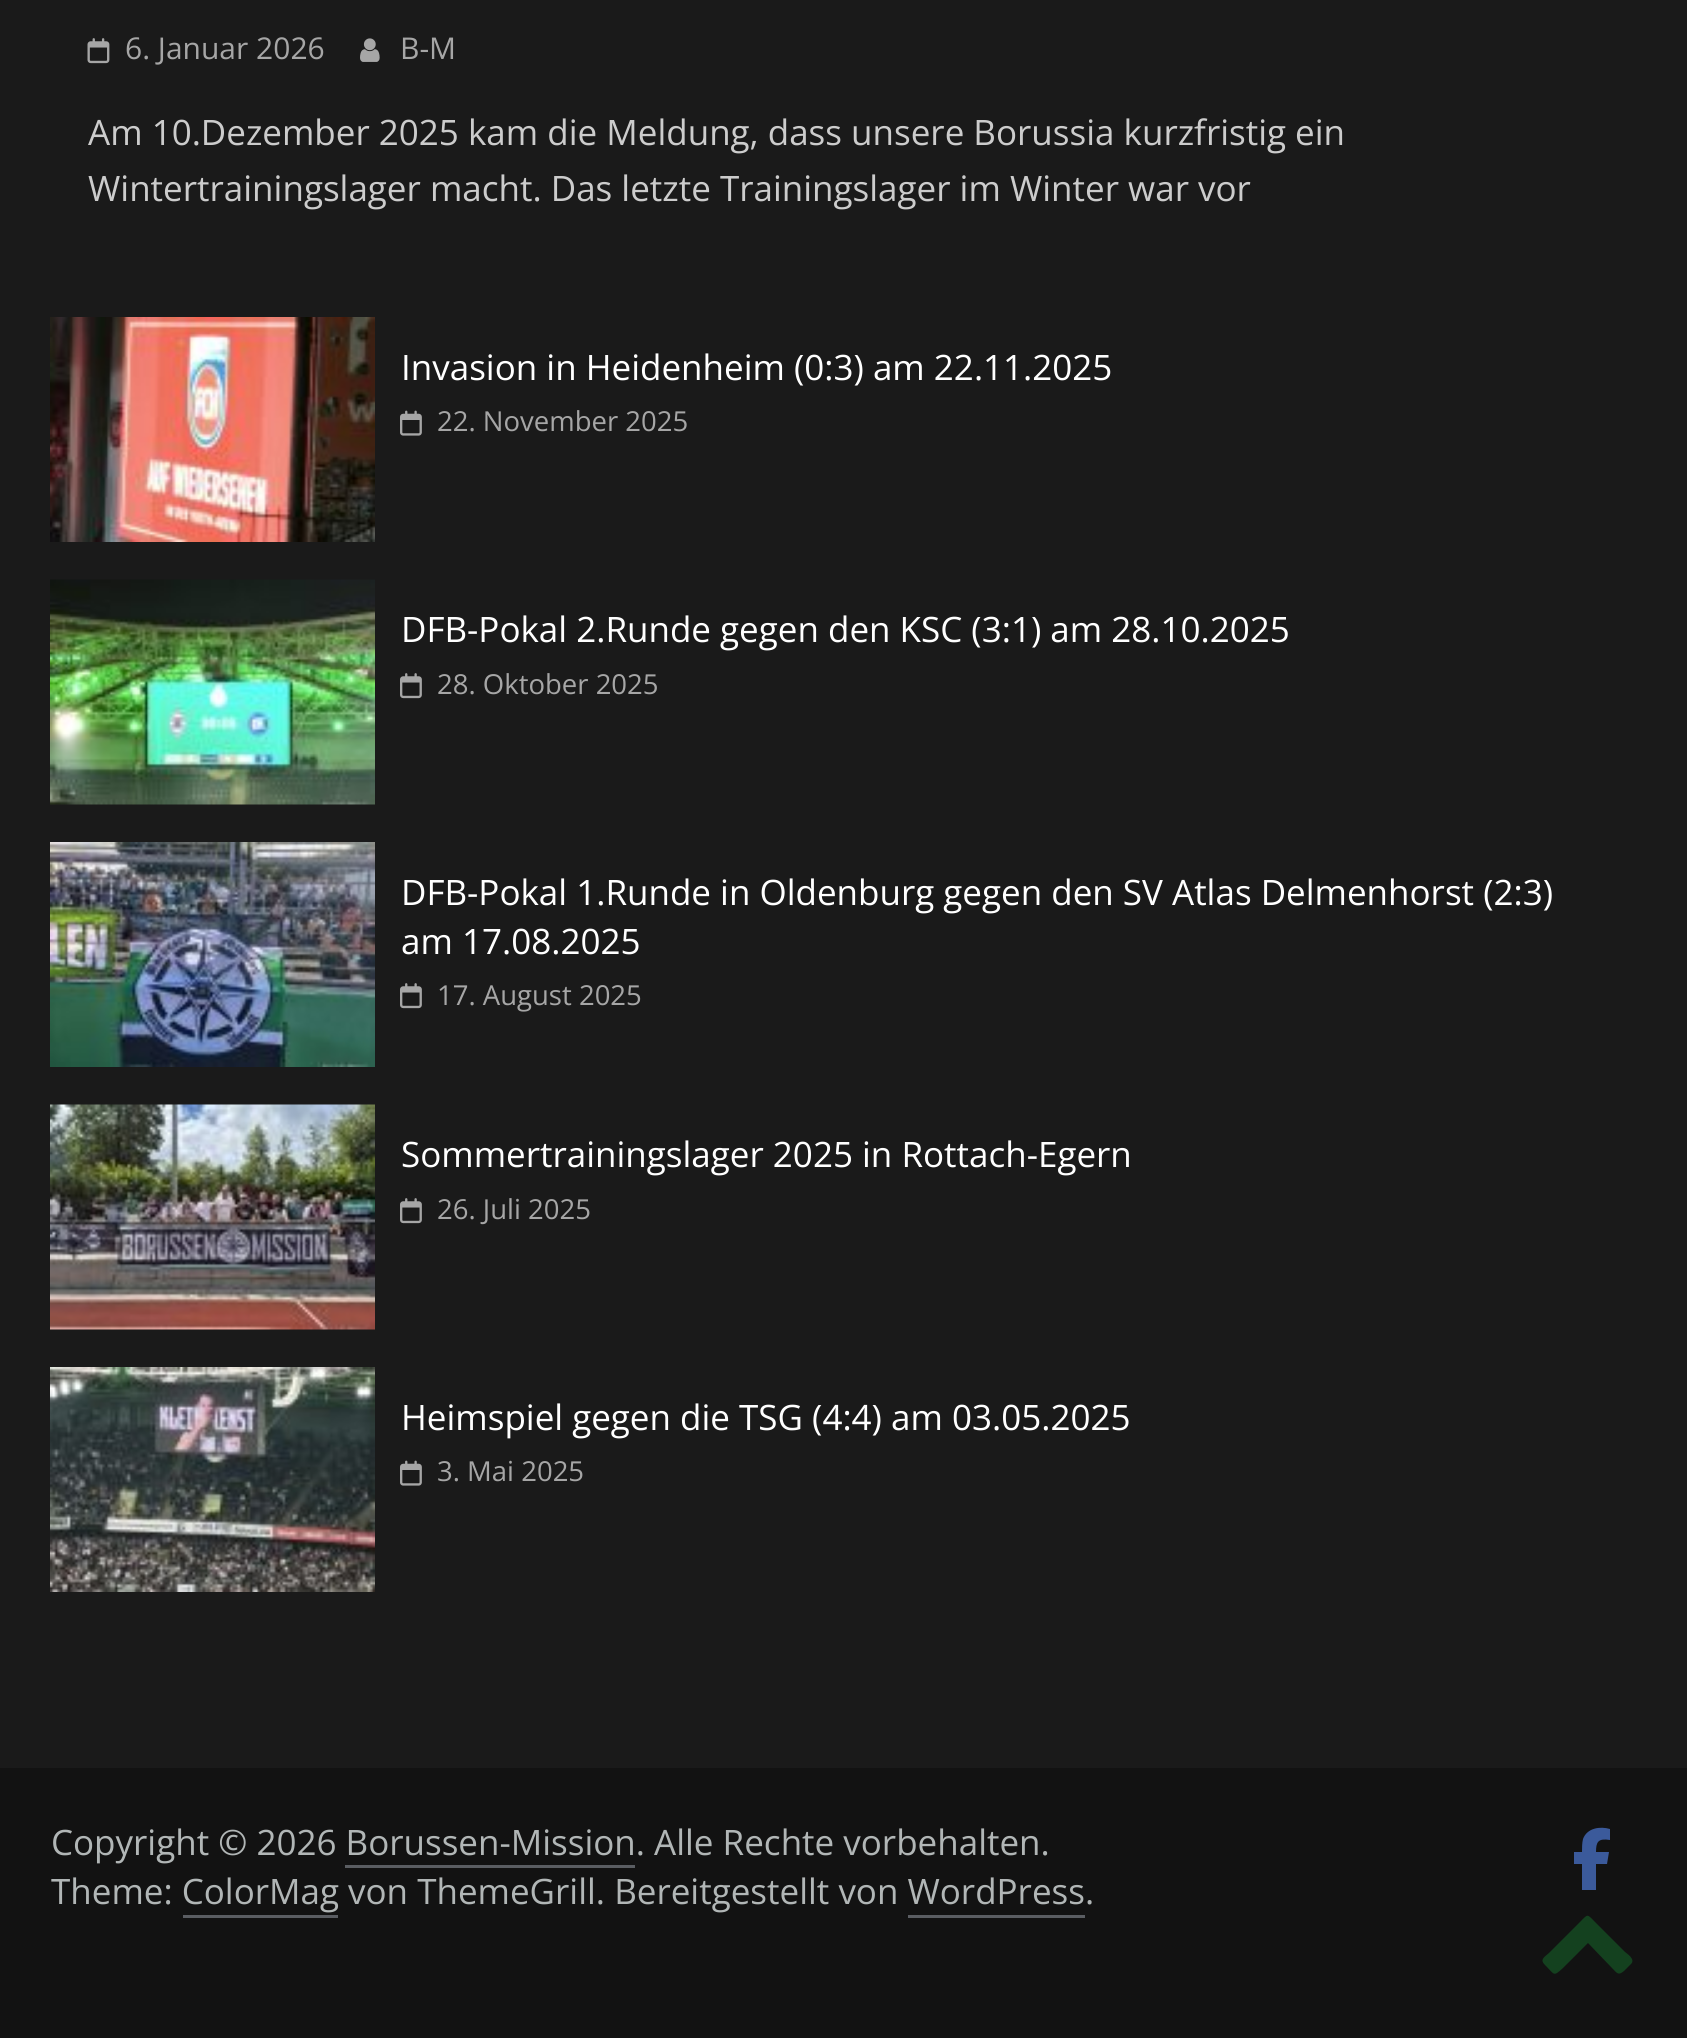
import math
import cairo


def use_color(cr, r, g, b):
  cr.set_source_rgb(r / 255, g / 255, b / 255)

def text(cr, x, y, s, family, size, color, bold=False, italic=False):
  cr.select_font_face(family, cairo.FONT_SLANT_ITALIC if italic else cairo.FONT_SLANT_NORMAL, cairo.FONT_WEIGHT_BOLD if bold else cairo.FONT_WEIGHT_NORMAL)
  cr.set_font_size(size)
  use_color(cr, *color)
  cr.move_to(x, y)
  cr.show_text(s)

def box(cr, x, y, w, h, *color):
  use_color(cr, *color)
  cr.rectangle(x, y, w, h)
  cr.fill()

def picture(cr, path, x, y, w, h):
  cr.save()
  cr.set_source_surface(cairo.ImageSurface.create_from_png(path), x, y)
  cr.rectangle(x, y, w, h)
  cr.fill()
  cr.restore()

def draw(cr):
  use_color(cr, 26, 26, 26)
  cr.paint()
  picture(cr, "img_01.png", 87, 38, 23, 26)
  picture(cr, "img_02.png", 360, 38, 20, 24)
  picture(cr, "img_03.png", 50, 317, 325, 225)
  picture(cr, "img_04.png", 400, 410, 22, 26)
  picture(cr, "img_05.png", 50, 579, 325, 226)
  picture(cr, "img_06.png", 400, 673, 22, 26)
  picture(cr, "img_07.png", 50, 842, 325, 225)
  picture(cr, "img_06.png", 400, 983, 22, 26)
  picture(cr, "img_08.png", 50, 1104, 325, 226)
  picture(cr, "img_06.png", 400, 1198, 22, 26)
  picture(cr, "img_09.png", 50, 1367, 325, 225)
  picture(cr, "img_04.png", 400, 1460, 22, 26)
  box(cr, 0, 1768, 1687, 270, 18, 18, 18)
  box(cr, 345, 1865, 290, 3, 90, 93, 98)
  box(cr, 183, 1915, 155, 3, 90, 93, 98)
  box(cr, 908, 1915, 177, 3, 90, 93, 98)
  use_color(cr, 59, 90, 155)
  cr.new_path()
  cr.move_to(1582, 1864)
  cr.line_to(1582, 1890)
  cr.line_to(1582, 1864)
  cr.line_to(1582, 1890)
  cr.line_to(1596, 1890)
  cr.line_to(1596, 1864)
  cr.line_to(1607, 1864)
  cr.line_to(1609, 1852)
  cr.line_to(1596, 1852)
  cr.curve_to(1596, 1842, 1598, 1838, 1610, 1840)
  cr.line_to(1610, 1829)
  cr.curve_to(1600, 1826, 1587, 1828, 1583, 1839)
  cr.curve_to(1582, 1843, 1582, 1848, 1582, 1852)
  cr.line_to(1574, 1852)
  cr.line_to(1574, 1864)
  cr.close_path()
  cr.fill()
  use_color(cr, 20, 65, 31)
  cr.new_path()
  cr.move_to(1631, 1964)
  cr.line_to(1624, 1971)
  cr.curve_to(1618, 1976, 1617, 1973, 1612, 1968)
  cr.line_to(1588, 1943)
  cr.line_to(1563, 1968)
  cr.curve_to(1553, 1977, 1555, 1975, 1545, 1965)
  cr.curve_to(1539, 1959, 1545, 1957, 1550, 1952)
  cr.line_to(1578, 1924)
  cr.curve_to(1589, 1913, 1586, 1913, 1597, 1924)
  cr.line_to(1625, 1952)
  cr.curve_to(1626, 1953, 1636, 1959, 1631, 1964)
  cr.close_path()
  cr.fill()
  text(cr, 125, 59, "6. Januar 2026", "Open Sans", 30, (166, 166, 166))
  text(cr, 400, 59, "B-M", "Open Sans", 30, (166, 166, 166))
  text(cr, 88, 145, "Am 10.Dezember 2025 kam die Meldung, dass unsere Borussia kurzfristig ein", "Open Sans", 35, (204, 204, 204))
  text(cr, 88, 201, "Wintertrainingslager macht. Das letzte Trainingslager im Winter war vor", "Open Sans", 35, (204, 204, 204))
  text(cr, 401, 380, "Invasion in Heidenheim (0:3) am 22.11.2025", "Open Sans", 35, (255, 255, 255))
  text(cr, 437, 431, "22. November 2025", "Open Sans", 27.5, (166, 166, 166))
  text(cr, 401, 642, "DFB-Pokal 2.Runde gegen den KSC (3:1) am 28.10.2025", "Open Sans", 35, (255, 255, 255))
  text(cr, 437, 694, "28. Oktober 2025", "Open Sans", 27.5, (166, 166, 166))
  text(cr, 401, 905, "DFB-Pokal 1.Runde in Oldenburg gegen den SV Atlas Delmenhorst (2:3)", "Open Sans", 35, (255, 255, 255))
  text(cr, 401, 954, "am 17.08.2025", "Open Sans", 35, (255, 255, 255))
  text(cr, 437, 1005, "17. August 2025", "Open Sans", 27.5, (166, 166, 166))
  text(cr, 401, 1167, "Sommertrainingslager 2025 in Rottach-Egern", "Open Sans", 35, (255, 255, 255))
  text(cr, 437, 1219, "26. Juli 2025", "Open Sans", 27.5, (166, 166, 166))
  text(cr, 401, 1430, "Heimspiel gegen die TSG (4:4) am 03.05.2025", "Open Sans", 35, (255, 255, 255))
  text(cr, 437, 1481, "3. Mai 2025", "Open Sans", 27.5, (166, 166, 166))
  text(cr, 51, 1855, "Copyright © 2026 Borussen-Mission. Alle Rechte vorbehalten.", "Open Sans", 35, (177, 182, 182))
  text(cr, 51, 1904, "Theme: ColorMag von ThemeGrill. Bereitgestellt von WordPress.", "Open Sans", 35, (177, 182, 182))


surface = cairo.ImageSurface(cairo.FORMAT_RGB24, 1687, 2038)
cr = cairo.Context(surface)
options = cairo.FontOptions()
options.set_hint_metrics(cairo.HINT_METRICS_OFF)
options.set_hint_style(cairo.HINT_STYLE_NONE)
cr.set_font_options(options)
cr.set_miter_limit(4)
draw(cr)
surface.write_to_png("out.png")
